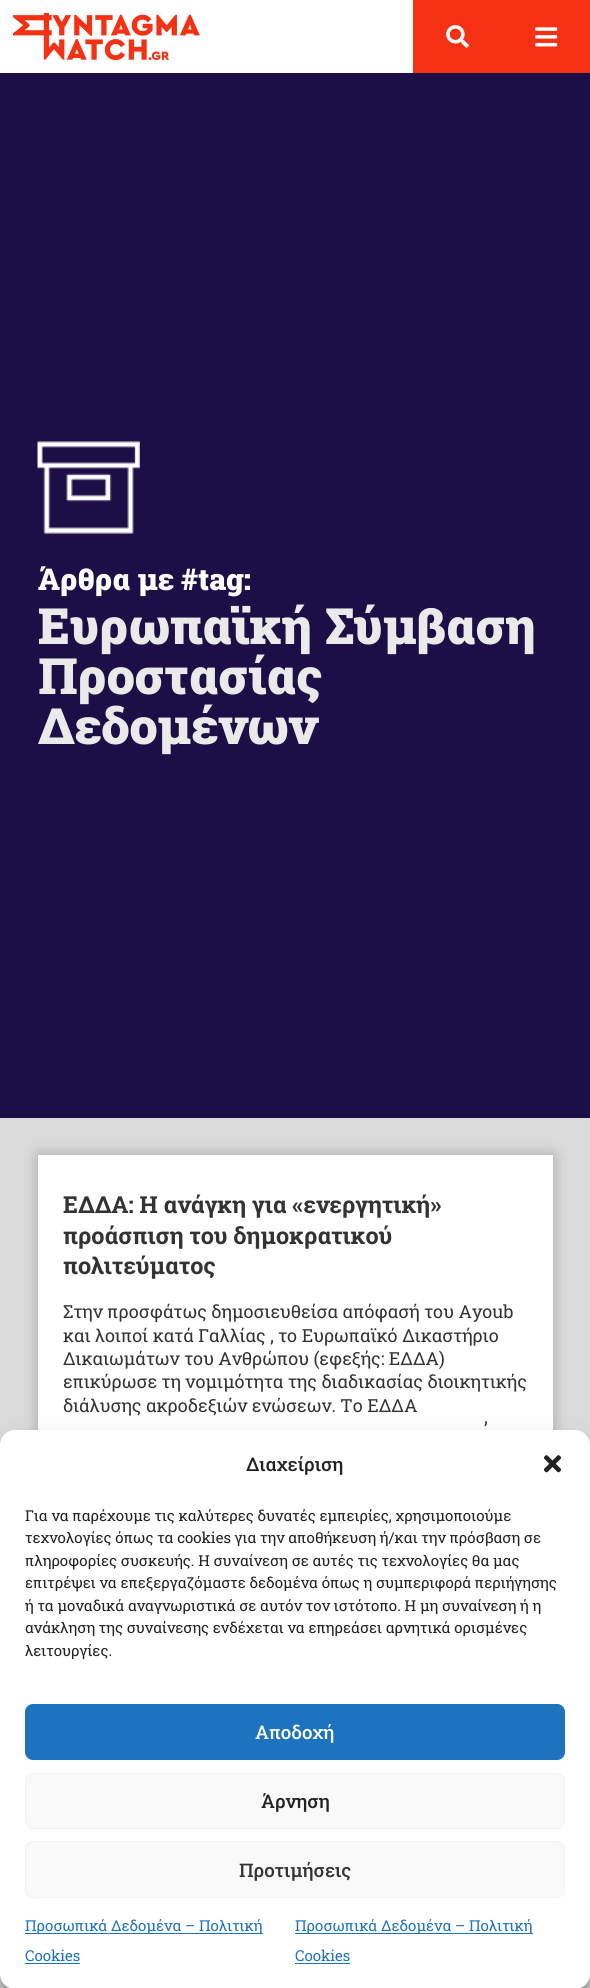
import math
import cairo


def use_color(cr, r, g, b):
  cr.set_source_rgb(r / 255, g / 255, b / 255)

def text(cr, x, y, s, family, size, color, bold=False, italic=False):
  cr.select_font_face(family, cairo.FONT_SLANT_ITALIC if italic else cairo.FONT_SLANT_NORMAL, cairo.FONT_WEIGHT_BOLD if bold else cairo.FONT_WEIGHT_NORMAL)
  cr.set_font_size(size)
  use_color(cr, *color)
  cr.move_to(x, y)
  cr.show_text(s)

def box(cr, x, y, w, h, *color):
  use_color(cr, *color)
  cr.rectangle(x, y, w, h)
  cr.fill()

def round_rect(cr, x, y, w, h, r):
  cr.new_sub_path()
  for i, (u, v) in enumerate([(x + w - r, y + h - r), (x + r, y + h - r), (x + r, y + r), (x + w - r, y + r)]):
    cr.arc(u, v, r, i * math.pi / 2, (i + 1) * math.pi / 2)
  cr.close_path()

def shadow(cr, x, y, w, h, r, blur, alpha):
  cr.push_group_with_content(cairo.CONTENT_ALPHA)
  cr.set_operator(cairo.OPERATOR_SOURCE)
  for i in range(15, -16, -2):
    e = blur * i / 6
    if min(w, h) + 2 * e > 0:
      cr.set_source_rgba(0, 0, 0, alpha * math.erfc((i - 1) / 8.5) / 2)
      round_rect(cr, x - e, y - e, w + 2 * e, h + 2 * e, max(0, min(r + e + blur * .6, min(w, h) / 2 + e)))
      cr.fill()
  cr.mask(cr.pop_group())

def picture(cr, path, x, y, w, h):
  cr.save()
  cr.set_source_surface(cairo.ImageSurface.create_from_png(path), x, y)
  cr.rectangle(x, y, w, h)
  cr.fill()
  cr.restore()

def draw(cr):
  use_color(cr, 255, 255, 255)
  cr.paint()
  picture(cr, "img_01.png", 13, 13, 187, 47)
  box(cr, 413, 0, 177, 73, 244, 49, 19)
  picture(cr, "img_02.png", 446, 25, 23, 23)
  picture(cr, "img_03.png", 535, 27, 23, 20)
  box(cr, 0, 73, 590, 1045, 28, 14, 71)
  picture(cr, "img_04.png", 37, 441, 103, 93)
  box(cr, 0, 1118, 590, 870, 219, 219, 219)
  use_color(cr, 0, 0, 0)
  shadow(cr, 38, 1155, 515, 484, 0, 7.5, 0.25)
  box(cr, 38, 1155, 515, 275, 255, 255, 255)
  use_color(cr, 0, 0, 0)
  shadow(cr, 0, 1438, 590, 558, 15, 4, 0.23)
  shadow(cr, 0, 1443, 590, 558, 15, 12.5, 0.19)
  use_color(cr, 255, 255, 255)
  round_rect(cr, 0, 1430, 590, 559, 15)
  cr.fill()
  picture(cr, "img_05.png", 543, 1455, 19, 18)
  use_color(cr, 30, 115, 190)
  round_rect(cr, 25.5, 1704.5, 539, 55, 7.5)
  cr.fill_preserve()
  cr.set_line_width(1)
  cr.stroke()
  use_color(cr, 249, 249, 249)
  round_rect(cr, 25.5, 1773.5, 539, 55, 7.5)
  cr.fill_preserve()
  use_color(cr, 242, 242, 242)
  cr.stroke()
  use_color(cr, 249, 249, 249)
  round_rect(cr, 25.5, 1841.5, 539, 56, 7.5)
  cr.fill_preserve()
  use_color(cr, 242, 242, 242)
  cr.stroke()
  box(cr, 25, 1933, 238, 1, 30, 115, 190)
  box(cr, 25, 1963, 55, 1, 30, 115, 190)
  box(cr, 295, 1933, 238, 1, 30, 115, 190)
  box(cr, 295, 1963, 55, 1, 30, 115, 190)
  text(cr, 38, 590, "Άρθρα με #tag:", "Roboto Slab Black", 30, (255, 255, 255))
  text(cr, 38, 644, "Ευρωπαϊκή Σύμβαση", "Roboto Slab Black", 50, (234, 234, 234))
  text(cr, 38, 694, "Προστασίας", "Roboto Slab Black", 50, (234, 234, 234))
  text(cr, 38, 744, "Δεδομένων", "Roboto Slab Black", 50, (234, 234, 234))
  text(cr, 63, 1213, "ΕΔΔΑ: H ανάγκη για «ενεργητική»", "Roboto Slab", 23.4, (51, 51, 51), bold=True)
  text(cr, 63, 1244, "προάσπιση του δημοκρατικού", "Roboto Slab", 23.4, (51, 51, 51), bold=True)
  text(cr, 63, 1274, "πολιτεύματος", "Roboto Slab", 23.4, (51, 51, 51), bold=True)
  text(cr, 63, 1318, "Στην προσφάτως δημοσιευθείσα απόφασή του Ayoub", "Roboto Slab", 18, (51, 51, 51))
  text(cr, 63, 1342, "και λοιποί κατά Γαλλίας , το Ευρωπαϊκό Δικαστήριο", "Roboto Slab", 18, (51, 51, 51))
  text(cr, 63, 1365, "Δικαιωμάτων του Ανθρώπου (εφεξής: ΕΔΔΑ)", "Roboto Slab", 18, (51, 51, 51))
  text(cr, 63, 1388, "επικύρωσε τη νομιμότητα της διαδικασίας διοικητικής", "Roboto Slab", 18, (51, 51, 51))
  text(cr, 63, 1412, "διάλυσης ακροδεξιών ενώσεων. Το ΕΔΔΑ", "Roboto Slab", 18, (51, 51, 51))
  text(cr, 484, 1435, "’", "Roboto Slab", 18, (51, 51, 51))
  text(cr, 246, 1471, "Διαχείριση", "Roboto Slab Medium", 18.75, (34, 34, 34))
  text(cr, 25, 1521, "Για να παρέχουμε τις καλύτερες δυνατές εμπειρίες, χρησιμοποιούμε", "Roboto Slab", 15, (34, 34, 34))
  text(cr, 25, 1543, "τεχνολογίες όπως τα cookies για την αποθήκευση ή/και την πρόσβαση σε", "Roboto Slab", 15, (34, 34, 34))
  text(cr, 25, 1566, "πληροφορίες συσκευής. Η συναίνεση σε αυτές τις τεχνολογίες θα μας", "Roboto Slab", 15, (34, 34, 34))
  text(cr, 25, 1588, "επιτρέψει να επεξεργαζόμαστε δεδομένα όπως η συμπεριφορά περιήγησης", "Roboto Slab", 15, (34, 34, 34))
  text(cr, 25, 1611, "ή τα μοναδικά αναγνωριστικά σε αυτόν τον ιστότοπο. Η μη συναίνεση ή η", "Roboto Slab", 15, (34, 34, 34))
  text(cr, 25, 1633, "ανάκληση της συναίνεσης ενδέχεται να επηρεάσει αρνητικά ορισμένες", "Roboto Slab", 15, (34, 34, 34))
  text(cr, 25, 1656, "λειτουργίες.", "Roboto Slab", 15, (34, 34, 34))
  text(cr, 255, 1739, "Αποδοχή", "Roboto Slab Medium", 18.75, (255, 255, 255))
  text(cr, 261, 1808, "Άρνηση", "Roboto Slab Medium", 18.75, (34, 34, 34))
  text(cr, 239, 1877, "Προτιμήσεις", "Roboto Slab Medium", 18.75, (51, 51, 51))
  text(cr, 25, 1931, "Προσωπικά Δεδομένα – Πολιτική", "Roboto Slab", 15, (30, 115, 190))
  text(cr, 25, 1961, "Cookies", "Roboto Slab", 15, (30, 115, 190))
  text(cr, 295, 1931, "Προσωπικά Δεδομένα – Πολιτική", "Roboto Slab", 15, (30, 115, 190))
  text(cr, 295, 1961, "Cookies", "Roboto Slab", 15, (30, 115, 190))


surface = cairo.ImageSurface(cairo.FORMAT_RGB24, 590, 1988)
cr = cairo.Context(surface)
options = cairo.FontOptions()
options.set_hint_metrics(cairo.HINT_METRICS_OFF)
options.set_hint_style(cairo.HINT_STYLE_NONE)
cr.set_font_options(options)
cr.set_miter_limit(4)
draw(cr)
surface.write_to_png("out.png")
